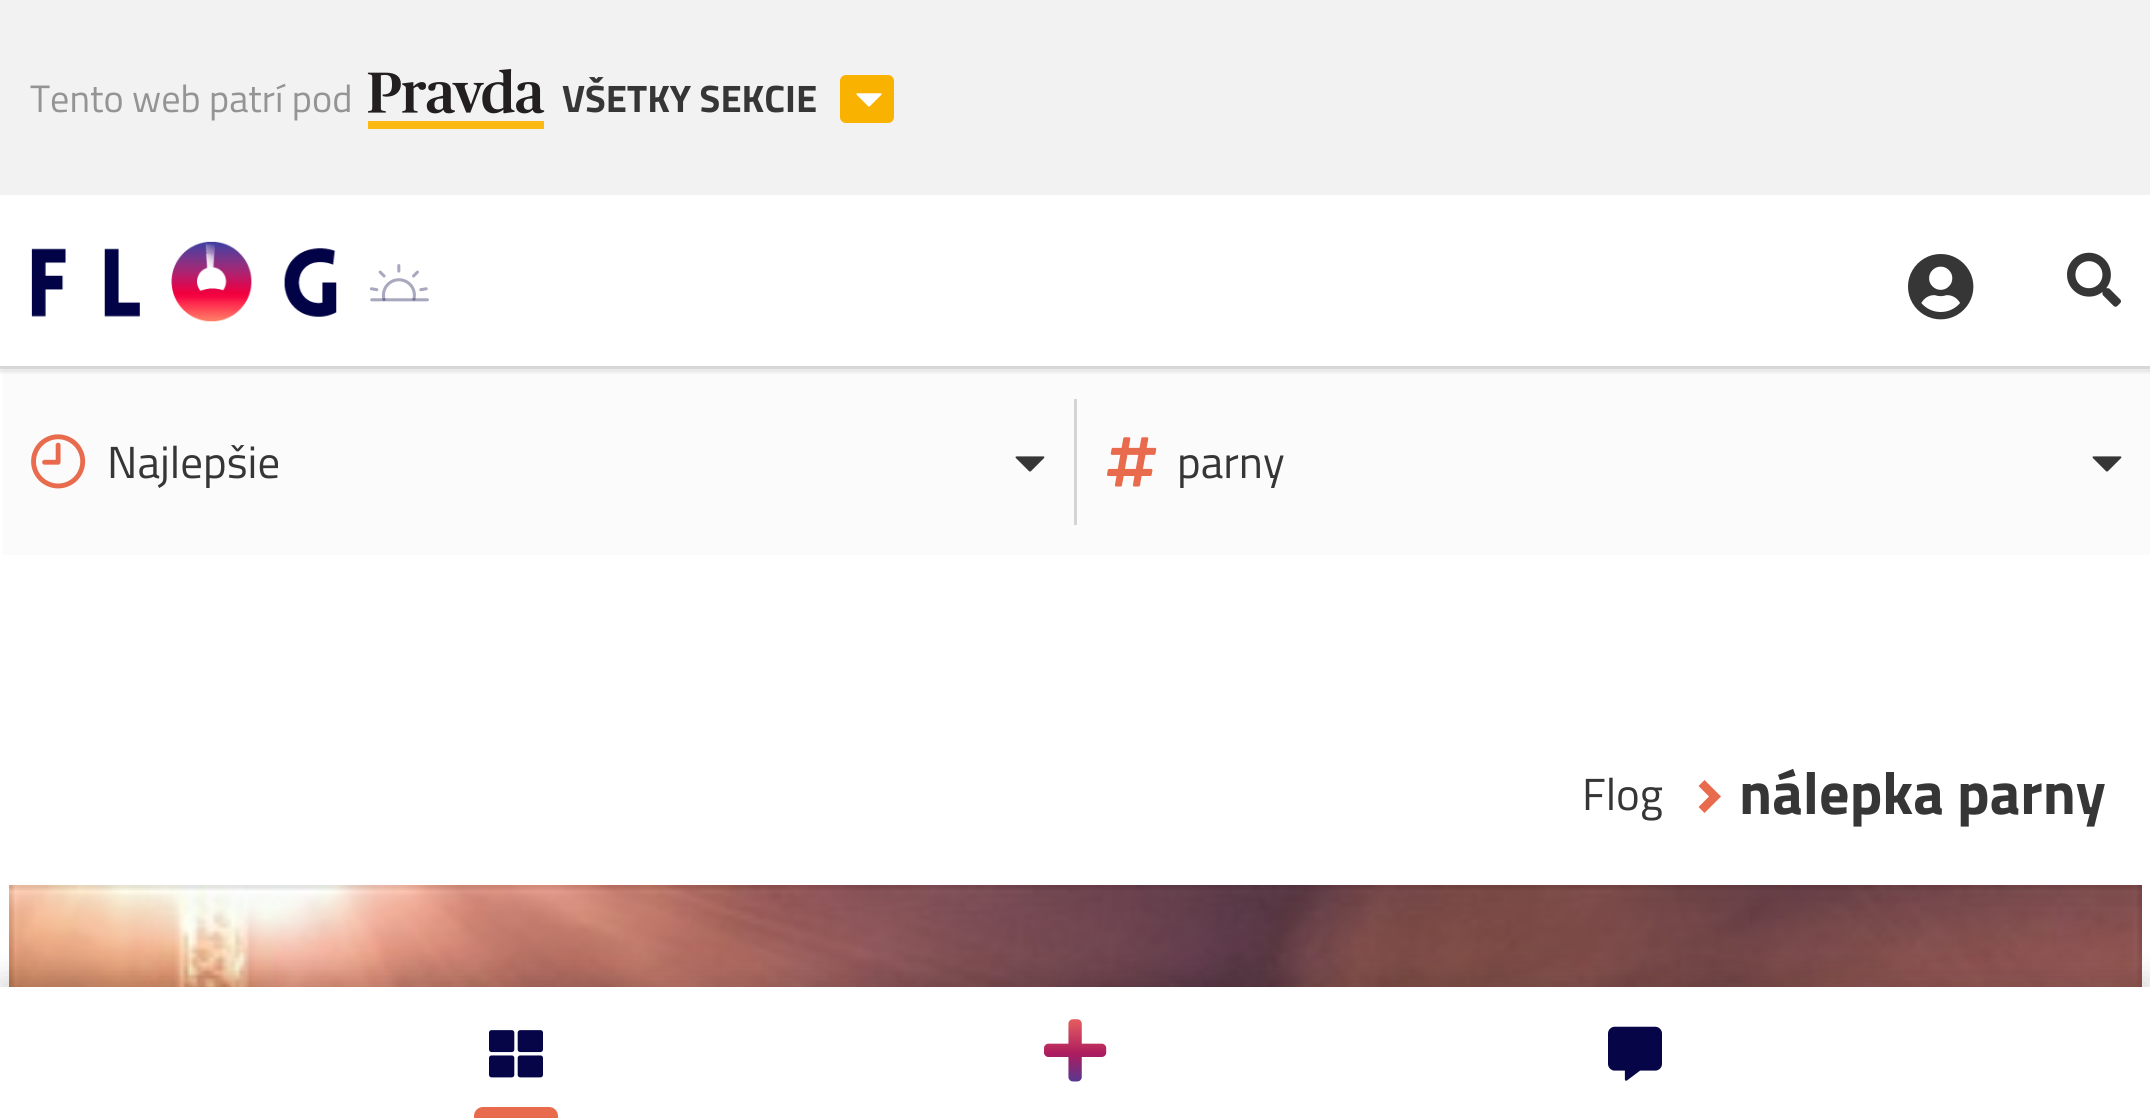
import math
import cairo


def use_color(cr, r, g, b):
  cr.set_source_rgb(r / 255, g / 255, b / 255)

def text(cr, x, y, s, family, size, color, bold=False, italic=False):
  cr.select_font_face(family, cairo.FONT_SLANT_ITALIC if italic else cairo.FONT_SLANT_NORMAL, cairo.FONT_WEIGHT_BOLD if bold else cairo.FONT_WEIGHT_NORMAL)
  cr.set_font_size(size)
  use_color(cr, *color)
  cr.move_to(x, y)
  cr.show_text(s)

def box(cr, x, y, w, h, *color):
  use_color(cr, *color)
  cr.rectangle(x, y, w, h)
  cr.fill()

def round_rect(cr, x, y, w, h, r):
  cr.new_sub_path()
  for i, (u, v) in enumerate([(x + w - r, y + h - r), (x + r, y + h - r), (x + r, y + r), (x + w - r, y + r)]):
    cr.arc(u, v, r, i * math.pi / 2, (i + 1) * math.pi / 2)
  cr.close_path()

def shadow(cr, x, y, w, h, r, blur, alpha):
  cr.push_group_with_content(cairo.CONTENT_ALPHA)
  cr.set_operator(cairo.OPERATOR_SOURCE)
  for i in range(15, -16, -2):
    e = blur * i / 6
    if min(w, h) + 2 * e > 0:
      cr.set_source_rgba(0, 0, 0, alpha * math.erfc((i - 1) / 8.5) / 2)
      round_rect(cr, x - e, y - e, w + 2 * e, h + 2 * e, max(0, min(r + e + blur * .6, min(w, h) / 2 + e)))
      cr.fill()
  cr.mask(cr.pop_group())

def picture(cr, path, x, y, w, h):
  cr.save()
  cr.set_source_surface(cairo.ImageSurface.create_from_png(path), x, y)
  cr.rectangle(x, y, w, h)
  cr.fill()
  cr.restore()

def draw(cr):
  use_color(cr, 255, 255, 255)
  cr.paint()
  box(cr, 0, 0, 2150, 195, 242, 242, 242)
  picture(cr, "img_01.png", 367, 69, 178, 60)
  use_color(cr, 250, 178, 1)
  round_rect(cr, 840, 75, 54, 48, 6)
  cr.fill()
  picture(cr, "img_02.png", 856, 93, 26, 14)
  picture(cr, "img_03.png", 31, 241, 306, 81)
  picture(cr, "img_05.png", 205, 253, 9, 15)
  picture(cr, "img_04.png", 205, 243, 10, 25)
  picture(cr, "img_06.png", 369, 264, 60, 38)
  picture(cr, "img_07.png", 1908, 254, 66, 66)
  picture(cr, "img_08.png", 2067, 252, 54, 55)
  box(cr, 3, 369, 2147, 186, 251, 251, 251)
  use_color(cr, 0, 0, 0)
  shadow(cr, -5, 369, 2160, 3, 0, 1.5, 0.1)
  box(cr, 0, 366, 2150, 3, 215, 215, 215)
  picture(cr, "img_15.png", 9, 885, 2133, 102)
  use_color(cr, 0, 0, 0)
  shadow(cr, 0, 978, 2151, 132, 0, 15, 0.15)
  box(cr, 0, 987, 2150, 131, 255, 255, 255)
  picture(cr, "img_09.png", 489, 1030, 54, 48)
  use_color(cr, 233, 107, 77)
  cr.new_path()
  cr.move_to(483, 1107)
  cr.line_to(549, 1107)
  cr.curve_to(554, 1107, 558, 1111, 558, 1116)
  cr.line_to(558, 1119)
  cr.line_to(474, 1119)
  cr.line_to(474, 1116)
  cr.curve_to(474, 1111, 478, 1107, 483, 1107)
  cr.close_path()
  cr.fill()
  picture(cr, "img_10.png", 1044, 1019, 63, 63)
  picture(cr, "img_11.png", 1608, 1026, 54, 55)
  picture(cr, "img_12.png", 31, 434, 55, 55)
  picture(cr, "img_13.png", 1015, 456, 30, 16)
  box(cr, 1074, 399, 3, 126, 212, 212, 212)
  picture(cr, "img_14.png", 1107, 437, 50, 50)
  picture(cr, "img_13.png", 2092, 456, 30, 16)
  use_color(cr, 233, 107, 77)
  cr.new_path()
  cr.move_to(1721, 796.5)
  cr.line_to(1704.5, 813)
  cr.line_to(1698.5, 807)
  cr.line_to(1709, 796.5)
  cr.line_to(1698.5, 786)
  cr.line_to(1704.5, 780)
  cr.close_path()
  cr.fill()
  text(cr, 30, 112, "Tento web patrí pod", "Titillium Web", 38.25, (148, 148, 148))
  text(cr, 562, 112, "VŠETKY SEKCIE", "Titillium Web", 38.25, (54, 54, 54), bold=True)
  text(cr, 107, 478, "Najlepšie", "Titillium Web", 45, (54, 54, 54))
  text(cr, 1177, 478, "parny", "Titillium Web", 45, (54, 54, 54))
  text(cr, 1582, 810, "Flog", "Titillium Web", 45, (54, 54, 54))
  text(cr, 1739, 814, "nálepka parny", "Titillium Web", 60, (54, 54, 54), bold=True)


surface = cairo.ImageSurface(cairo.FORMAT_RGB24, 2150, 1118)
cr = cairo.Context(surface)
options = cairo.FontOptions()
options.set_hint_metrics(cairo.HINT_METRICS_OFF)
options.set_hint_style(cairo.HINT_STYLE_NONE)
cr.set_font_options(options)
cr.set_miter_limit(4)
draw(cr)
surface.write_to_png("out.png")
